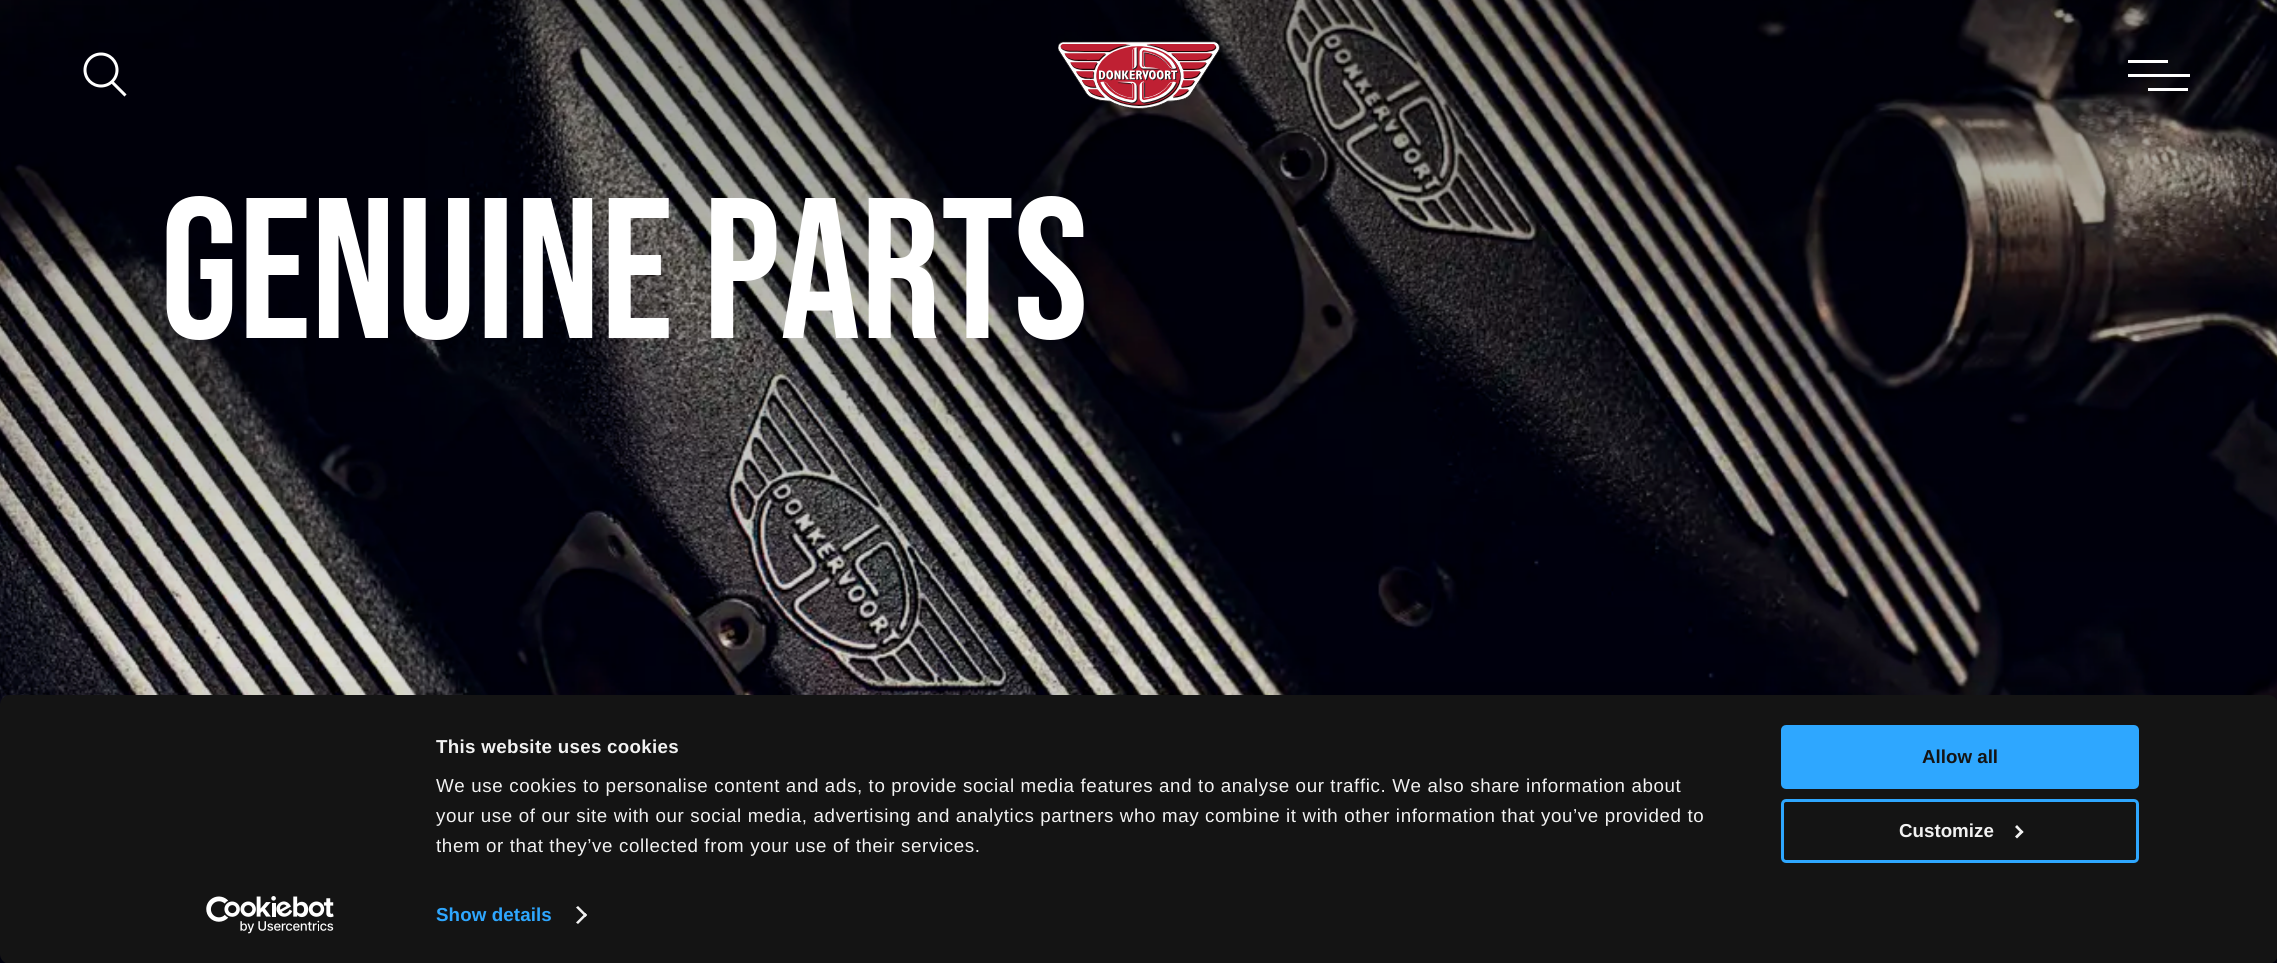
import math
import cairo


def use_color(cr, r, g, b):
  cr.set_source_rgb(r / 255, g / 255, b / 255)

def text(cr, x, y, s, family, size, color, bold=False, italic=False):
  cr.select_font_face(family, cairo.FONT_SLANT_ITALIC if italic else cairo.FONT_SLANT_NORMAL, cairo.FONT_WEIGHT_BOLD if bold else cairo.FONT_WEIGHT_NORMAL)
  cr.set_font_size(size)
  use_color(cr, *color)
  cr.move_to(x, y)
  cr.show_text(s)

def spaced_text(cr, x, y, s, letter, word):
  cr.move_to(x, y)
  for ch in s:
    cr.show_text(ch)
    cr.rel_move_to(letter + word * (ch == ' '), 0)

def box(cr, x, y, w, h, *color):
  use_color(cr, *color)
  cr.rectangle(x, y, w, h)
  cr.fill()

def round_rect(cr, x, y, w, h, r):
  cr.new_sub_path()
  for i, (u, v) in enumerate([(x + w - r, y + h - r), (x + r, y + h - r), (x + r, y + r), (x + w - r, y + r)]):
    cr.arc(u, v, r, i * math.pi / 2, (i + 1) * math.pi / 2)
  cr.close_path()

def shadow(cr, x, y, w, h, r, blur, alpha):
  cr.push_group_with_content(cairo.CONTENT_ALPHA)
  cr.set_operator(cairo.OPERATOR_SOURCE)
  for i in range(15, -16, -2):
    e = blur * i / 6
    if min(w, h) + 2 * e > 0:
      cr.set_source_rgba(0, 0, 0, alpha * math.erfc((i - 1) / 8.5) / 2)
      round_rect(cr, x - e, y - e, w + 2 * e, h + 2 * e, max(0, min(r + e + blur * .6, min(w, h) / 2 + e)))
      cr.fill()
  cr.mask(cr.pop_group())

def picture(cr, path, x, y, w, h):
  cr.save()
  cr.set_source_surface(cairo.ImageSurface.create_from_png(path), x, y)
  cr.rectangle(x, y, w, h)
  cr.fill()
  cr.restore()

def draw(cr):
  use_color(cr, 255, 255, 255)
  cr.paint()
  picture(cr, "img_02.png", 0, 0, 2277, 963)
  cr.arc(101, 70, 16, 0, 2 * math.pi)
  use_color(cr, 255, 255, 255)
  cr.set_line_width(3)
  cr.stroke()
  cr.new_path()
  cr.move_to(112, 82)
  cr.line_to(125.5, 95.5)
  cr.stroke()
  picture(cr, "img_01.png", 1058, 41, 162, 68)
  box(cr, 2128, 60, 40, 3, 255, 255, 255)
  box(cr, 2128, 74, 62, 3, 255, 255, 255)
  box(cr, 2148, 88, 40, 3, 255, 255, 255)
  use_color(cr, 0, 0, 0)
  shadow(cr, 0, 733, 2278, 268, 10, 44, 0.3)
  use_color(cr, 20, 20, 20)
  round_rect(cr, 0, 695, 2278, 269, 10)
  cr.fill()
  use_color(cr, 242, 242, 242)
  cr.new_path()
  cr.move_to(578, 906)
  cr.line_to(587, 915)
  cr.line_to(585.5, 917)
  cr.line_to(576, 907.5)
  cr.close_path()
  cr.fill()
  cr.new_path()
  cr.move_to(585.5, 913)
  cr.line_to(587, 915)
  cr.line_to(578, 924)
  cr.line_to(576, 922.5)
  cr.close_path()
  cr.fill()
  use_color(cr, 46, 167, 255)
  round_rect(cr, 1782.5, 726.5, 355, 61, 3.5)
  cr.fill_preserve()
  cr.stroke()
  round_rect(cr, 1782.5, 800.5, 355, 61, 3.5)
  cr.stroke()
  use_color(cr, 242, 242, 242)
  cr.new_path()
  cr.move_to(2017, 825)
  cr.line_to(2023.5, 832)
  cr.line_to(2021.5, 833.5)
  cr.line_to(2015, 827)
  cr.close_path()
  cr.fill()
  cr.new_path()
  cr.move_to(2021.5, 830)
  cr.line_to(2023.5, 832)
  cr.line_to(2017, 838.5)
  cr.line_to(2015, 836.5)
  cr.close_path()
  cr.fill()
  picture(cr, "img_03.png", 206, 896, 128, 38)
  text(cr, 160, 338, "GENUINE", "Bebas Neue", 200, (255, 255, 255))
  text(cr, 703, 338, "PARTS", "Bebas Neue", 200, (255, 255, 255))
  cr.select_font_face("Liberation Sans", cairo.FONT_SLANT_NORMAL, cairo.FONT_WEIGHT_BOLD)
  cr.set_font_size(18.75)
  use_color(cr, 242, 242, 242)
  spaced_text(cr, 436, 753, "This website uses cookies", 0.3, 0)
  cr.select_font_face("Liberation Sans")
  spaced_text(cr, 436, 792, "We use cookies to personalise content and ads, to provide social media features and to analyse our traffic. We also share information about", 0.62, 0)
  spaced_text(cr, 436, 822, "your use of our site with our social media, advertising and analytics partners who may combine it with other information that you’ve provided to", 0.62, 0)
  spaced_text(cr, 436, 852, "them or that they’ve collected from your use of their services.", 0.62, 0)
  cr.select_font_face("Liberation Sans", cairo.FONT_SLANT_NORMAL, cairo.FONT_WEIGHT_BOLD)
  use_color(cr, 46, 167, 255)
  spaced_text(cr, 436, 921, "Show details", 0.1, 0)
  text(cr, 1922, 763, "Allow all", "Liberation Sans", 18.75, (20, 20, 20), bold=True)
  text(cr, 1899, 837, "Customize", "Liberation Sans", 18.75, (242, 242, 242), bold=True)


surface = cairo.ImageSurface(cairo.FORMAT_RGB24, 2277, 963)
cr = cairo.Context(surface)
options = cairo.FontOptions()
options.set_hint_metrics(cairo.HINT_METRICS_OFF)
options.set_hint_style(cairo.HINT_STYLE_NONE)
cr.set_font_options(options)
cr.set_miter_limit(4)
draw(cr)
surface.write_to_png("out.png")
